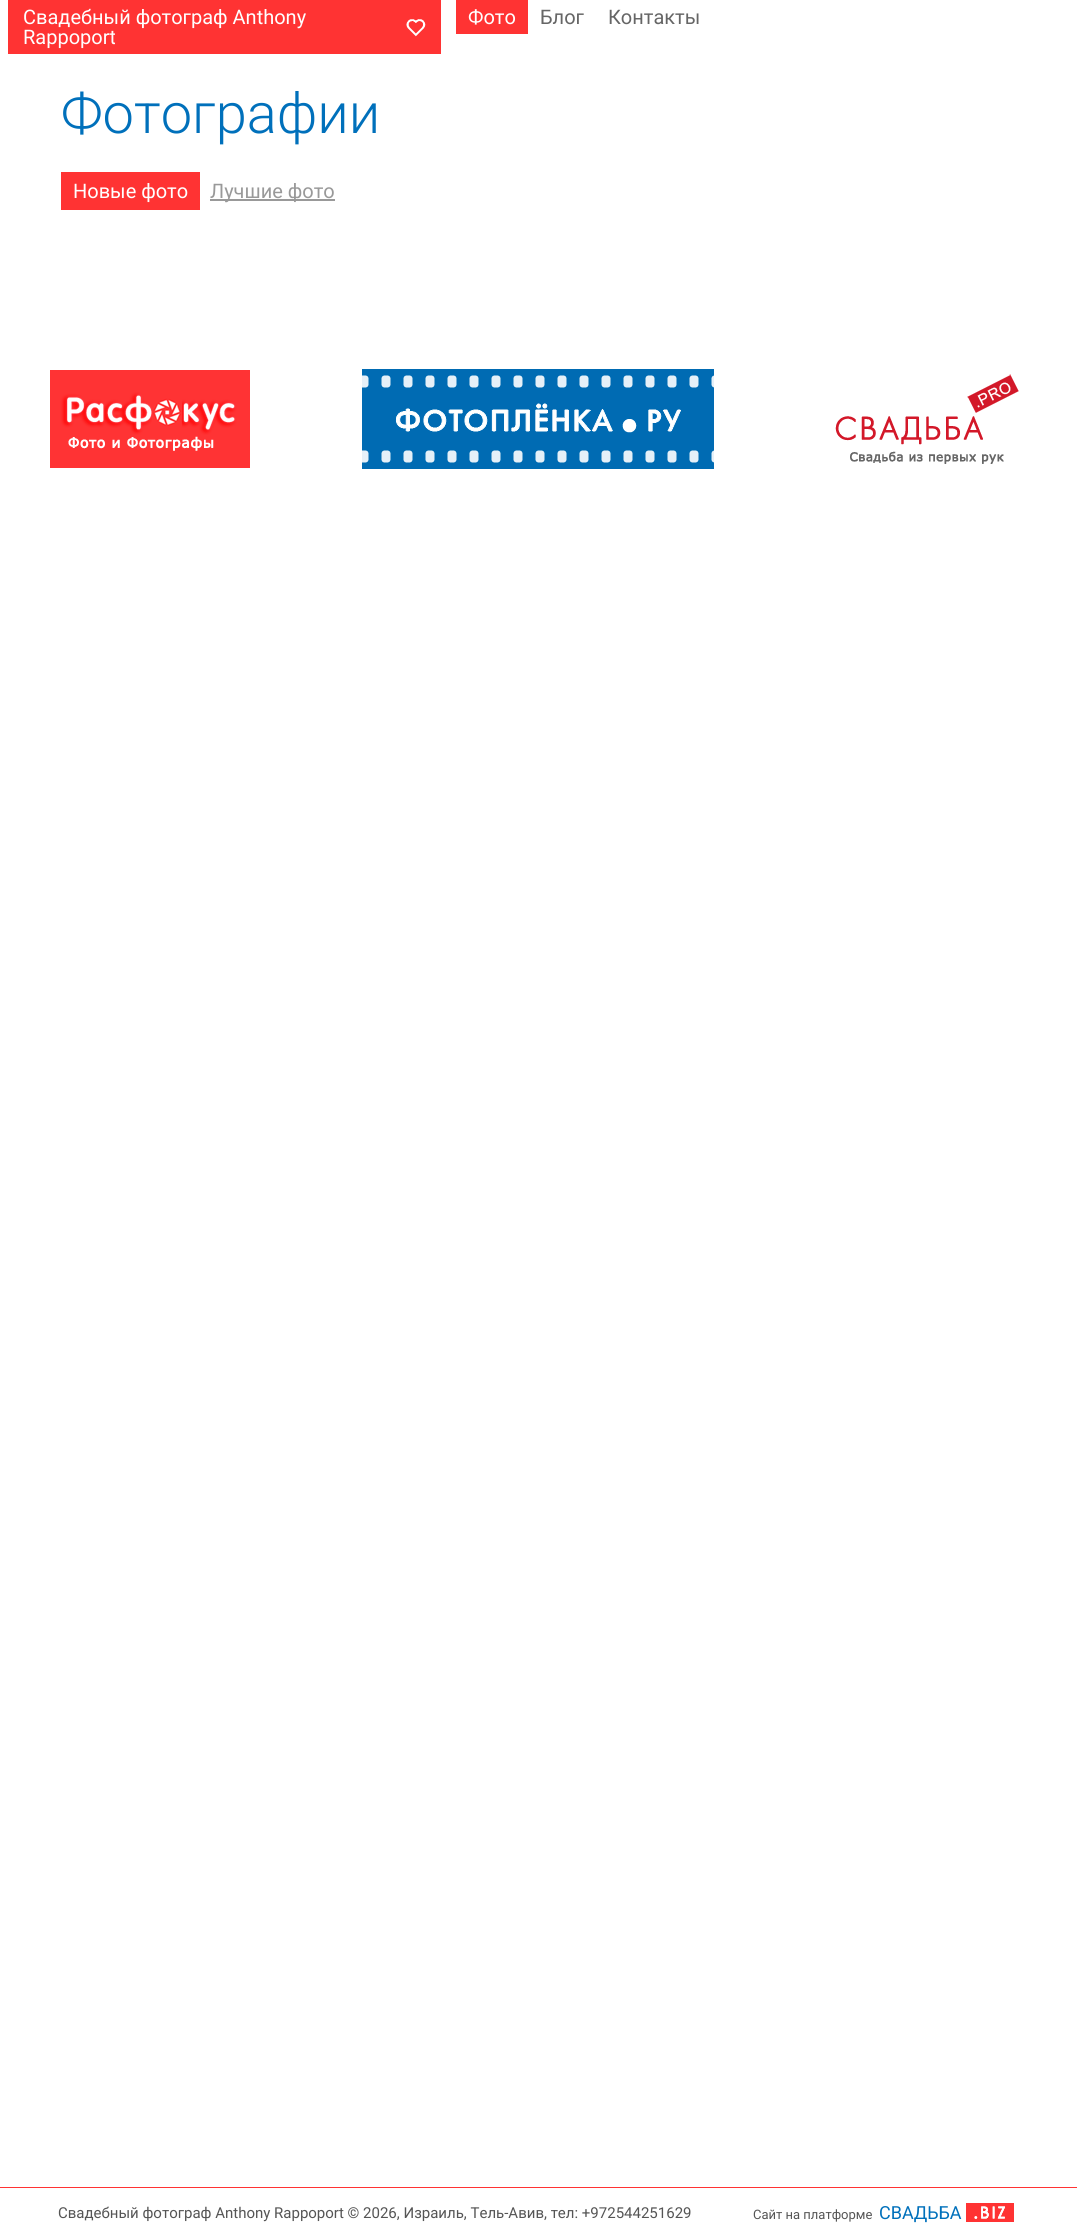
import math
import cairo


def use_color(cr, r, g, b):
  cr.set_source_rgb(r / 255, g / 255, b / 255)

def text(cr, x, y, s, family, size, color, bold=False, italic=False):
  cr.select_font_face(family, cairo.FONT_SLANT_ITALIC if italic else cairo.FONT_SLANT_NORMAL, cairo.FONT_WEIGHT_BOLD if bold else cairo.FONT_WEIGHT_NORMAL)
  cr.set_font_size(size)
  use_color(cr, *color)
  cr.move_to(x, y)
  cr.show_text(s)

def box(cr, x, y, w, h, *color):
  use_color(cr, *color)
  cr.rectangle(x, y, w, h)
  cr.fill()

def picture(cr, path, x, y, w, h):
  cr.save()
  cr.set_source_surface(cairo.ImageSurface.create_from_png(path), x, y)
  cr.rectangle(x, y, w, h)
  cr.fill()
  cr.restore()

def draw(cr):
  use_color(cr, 255, 255, 255)
  cr.paint()
  box(cr, 8, 0, 433, 54, 255, 51, 51)
  picture(cr, "img_01.png", 406, 19, 20, 18)
  box(cr, 456, 0, 72, 34, 255, 51, 51)
  box(cr, 61, 172, 139, 38, 255, 51, 51)
  box(cr, 210, 199, 125, 2, 153, 153, 153)
  picture(cr, "img_02.png", 50, 370, 200, 98)
  picture(cr, "img_03.png", 362, 369, 352, 100)
  picture(cr, "img_04.png", 835, 374, 184, 90)
  box(cr, 0, 2187, 1077, 1, 255, 51, 51)
  picture(cr, "img_05.png", 966, 2203, 48, 19)
  text(cr, 23, 24, "Свадебный фотограф Anthony", "Roboto", 20, (255, 255, 255))
  text(cr, 23, 44, "Rappoport", "Roboto", 20, (255, 255, 255))
  text(cr, 468, 24, "Фото", "Roboto", 20, (255, 255, 255))
  text(cr, 540, 24, "Блог", "Roboto", 20, (102, 102, 102))
  text(cr, 608, 24, "Контакты", "Roboto", 20, (102, 102, 102))
  text(cr, 61, 133, "Фотографии", "Roboto Light", 56, (0, 112, 187))
  text(cr, 73, 198, "Новые фото", "Roboto", 20, (255, 255, 255))
  text(cr, 210, 198, "Лучшие фото", "Roboto", 20, (153, 153, 153))
  text(cr, 58, 2218, "Свадебный фотограф Anthony Rappoport © 2026, Израиль, Тель-Авив, тел: +972544251629", "Roboto", 15, (85, 85, 85))
  text(cr, 753, 2219, "Сайт на платформе", "Roboto", 13, (85, 85, 85))
  text(cr, 879, 2219, "СВАДЬБА", "Roboto", 18, (0, 112, 187))


surface = cairo.ImageSurface(cairo.FORMAT_RGB24, 1077, 2240)
cr = cairo.Context(surface)
options = cairo.FontOptions()
options.set_hint_metrics(cairo.HINT_METRICS_OFF)
options.set_hint_style(cairo.HINT_STYLE_NONE)
cr.set_font_options(options)
cr.set_miter_limit(4)
draw(cr)
surface.write_to_png("out.png")
